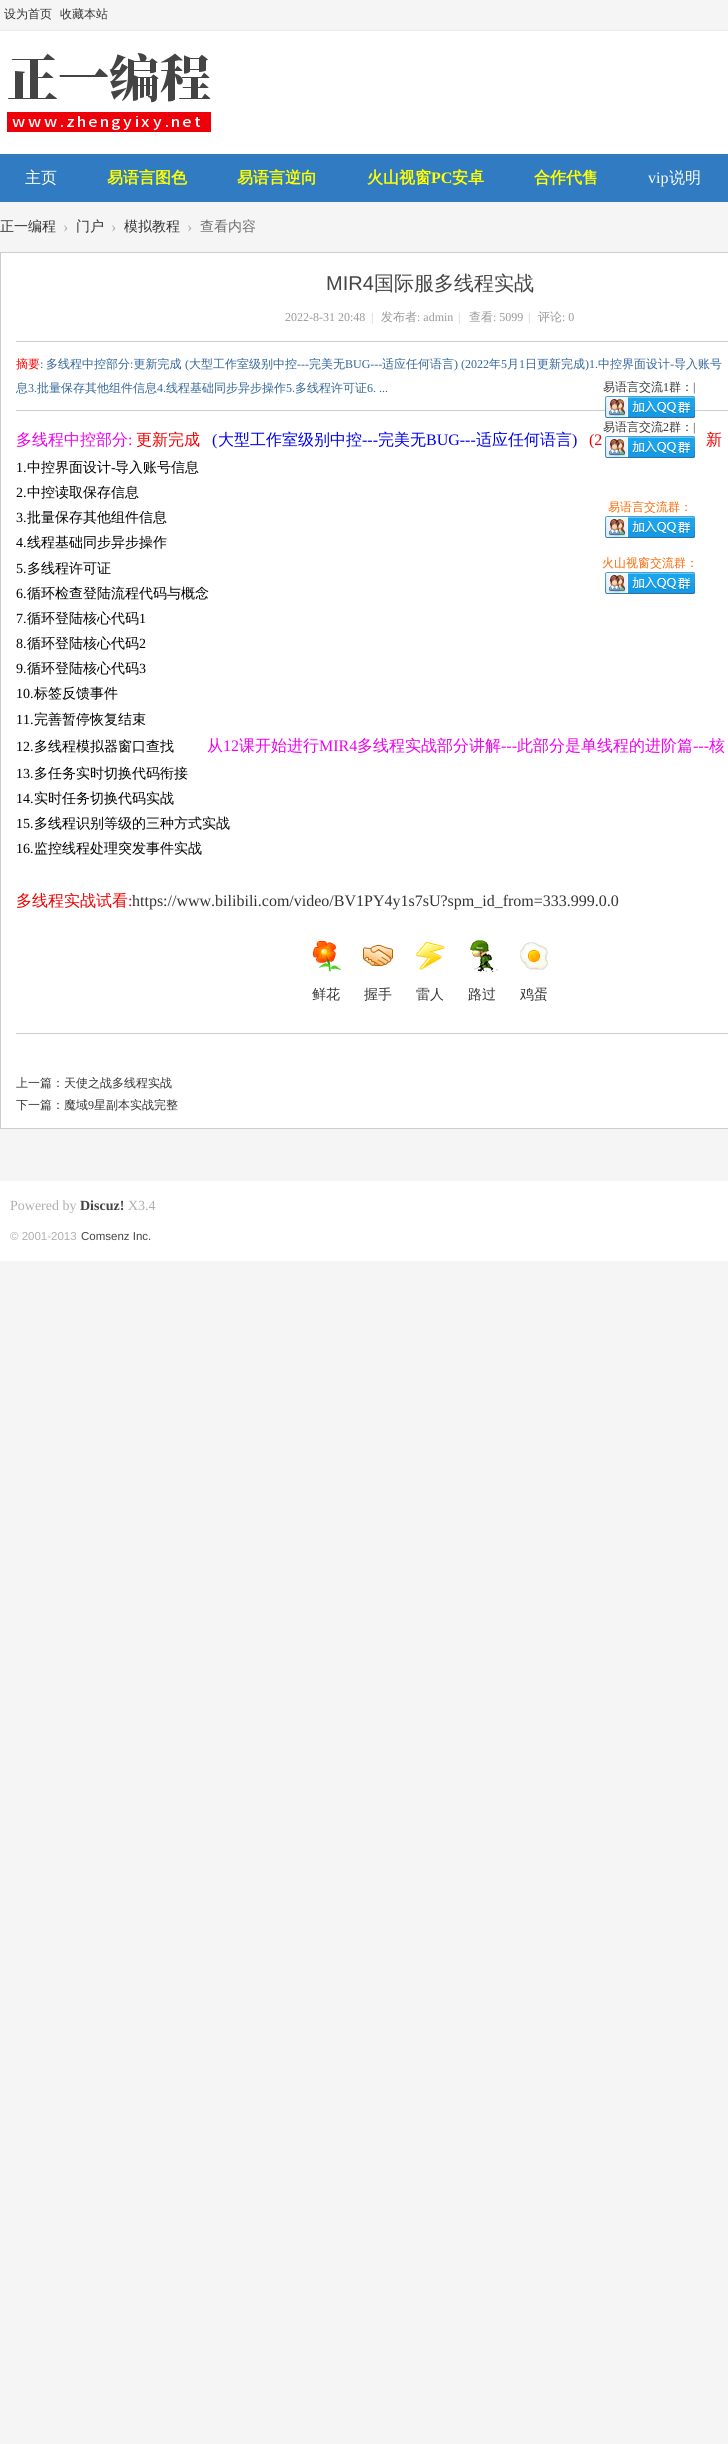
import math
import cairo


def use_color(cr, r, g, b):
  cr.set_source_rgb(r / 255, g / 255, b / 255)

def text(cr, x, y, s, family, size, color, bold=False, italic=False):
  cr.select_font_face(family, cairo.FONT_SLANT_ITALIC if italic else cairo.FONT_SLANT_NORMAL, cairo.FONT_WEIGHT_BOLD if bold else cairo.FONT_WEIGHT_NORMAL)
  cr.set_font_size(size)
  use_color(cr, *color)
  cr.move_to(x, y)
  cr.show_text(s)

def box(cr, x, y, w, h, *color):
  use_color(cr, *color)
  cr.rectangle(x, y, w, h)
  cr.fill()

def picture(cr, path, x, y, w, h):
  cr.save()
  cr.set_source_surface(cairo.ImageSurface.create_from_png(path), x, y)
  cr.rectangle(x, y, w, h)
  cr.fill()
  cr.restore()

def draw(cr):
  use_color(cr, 245, 245, 245)
  cr.paint()
  box(cr, 0, 30, 728, 1, 235, 235, 235)
  box(cr, 0, 31, 728, 123, 255, 255, 255)
  picture(cr, "img_01.png", 7, 53, 204, 79)
  box(cr, 0, 154, 728, 48, 48, 123, 193)
  use_color(cr, 255, 255, 255)
  cr.rectangle(0.5, 252.5, 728, 876)
  cr.fill_preserve()
  use_color(cr, 205, 205, 205)
  cr.set_line_width(1)
  cr.stroke()
  box(cr, 16, 341, 712, 1, 205, 205, 205)
  box(cr, 16, 410, 712, 1, 205, 205, 205)
  picture(cr, "img_02.png", 313, 941, 28, 31)
  picture(cr, "img_03.png", 363, 945, 30, 21)
  picture(cr, "img_04.png", 416, 942, 29, 28)
  picture(cr, "img_05.png", 470, 940, 28, 32)
  picture(cr, "img_06.png", 520, 942, 28, 28)
  box(cr, 16, 1033, 712, 1, 205, 205, 205)
  picture(cr, "img_07.png", 605, 396, 90, 22)
  picture(cr, "img_07.png", 605, 436, 90, 22)
  picture(cr, "img_07.png", 605, 516, 90, 22)
  picture(cr, "img_07.png", 605, 572, 90, 22)
  box(cr, 0, 1181, 728, 80, 255, 255, 255)
  text(cr, 4, 18, "设为首页", "WenQuanYi Zen Hei Medium", 12, (51, 51, 51))
  text(cr, 60, 18, "收藏本站", "WenQuanYi Zen Hei Medium", 12, (51, 51, 51))
  text(cr, 25, 183, "主页", "WenQuanYi Zen Hei Medium", 16, (255, 255, 255))
  text(cr, 107, 183, "易语言图色", "WenQuanYi Zen Hei", 16, (255, 255, 0), bold=True)
  text(cr, 237, 183, "易语言逆向", "WenQuanYi Zen Hei", 16, (255, 255, 0), bold=True)
  text(cr, 367, 183, "火山视窗", "WenQuanYi Zen Hei", 16, (255, 255, 0), bold=True)
  text(cr, 431, 183, "PC", "Liberation Serif", 16, (255, 255, 0), bold=True)
  text(cr, 452, 183, "安卓", "WenQuanYi Zen Hei", 16, (255, 255, 0), bold=True)
  text(cr, 534, 183, "合作代售", "WenQuanYi Zen Hei", 16, (255, 255, 0), bold=True)
  text(cr, 648, 183, "vip", "Liberation Serif", 16, (255, 255, 255))
  text(cr, 669, 183, "说明", "WenQuanYi Zen Hei Medium", 16, (255, 255, 255))
  text(cr, 0, 231, "正一编程", "WenQuanYi Zen Hei Medium", 14, (51, 51, 51))
  text(cr, 63, 232, "›", "Liberation Serif", 16, (175, 175, 175))
  text(cr, 76, 231, "门户", "WenQuanYi Zen Hei Medium", 14, (51, 51, 51))
  text(cr, 111, 232, "›", "Liberation Serif", 16, (175, 175, 175))
  text(cr, 124, 231, "模拟教程", "WenQuanYi Zen Hei Medium", 14, (51, 51, 51))
  text(cr, 187, 232, "›", "Liberation Serif", 16, (175, 175, 175))
  text(cr, 200, 231, "查看内容", "WenQuanYi Zen Hei Medium", 14, (111, 111, 111))
  text(cr, 326, 290, "MIR4", "Liberation Sans", 20, (68, 68, 68))
  text(cr, 374, 290, "国际服多线程实战", "WenQuanYi Zen Hei Medium", 20, (68, 68, 68))
  text(cr, 285, 321, "2022-8-31 20:48", "Liberation Serif", 12, (153, 153, 153))
  text(cr, 371, 321, "|", "Liberation Serif", 12, (204, 204, 204))
  text(cr, 381, 321, "发布者", "WenQuanYi Zen Hei Medium", 12, (153, 153, 153))
  text(cr, 417, 321, ": admin", "Liberation Serif", 12, (153, 153, 153))
  text(cr, 458, 321, "|", "Liberation Serif", 12, (204, 204, 204))
  text(cr, 469, 321, "查看", "WenQuanYi Zen Hei Medium", 12, (153, 153, 153))
  text(cr, 493, 321, ": 5099", "Liberation Serif", 12, (153, 153, 153))
  text(cr, 528, 321, "|", "Liberation Serif", 12, (204, 204, 204))
  text(cr, 538, 321, "评论", "WenQuanYi Zen Hei Medium", 12, (153, 153, 153))
  text(cr, 562, 321, ": 0", "Liberation Serif", 12, (153, 153, 153))
  text(cr, 16, 368, "摘要", "WenQuanYi Zen Hei Medium", 12, (255, 0, 0))
  text(cr, 40, 368, ":", "Liberation Serif", 12, (51, 102, 153))
  text(cr, 46, 368, "多线程中控部分 更新完成", "WenQuanYi Zen Hei Medium", 12, (51, 102, 153))
  text(cr, 185, 368, "(", "Liberation Serif", 12, (51, 102, 153))
  text(cr, 189, 368, "大型工作室级别中控", "WenQuanYi Zen Hei Medium", 12, (51, 102, 153))
  text(cr, 309, 368, "完美无", "WenQuanYi Zen Hei Medium", 12, (51, 102, 153))
  text(cr, 345, 368, "BUG---", "Liberation Serif", 12, (51, 102, 153))
  text(cr, 382, 368, "适应任何语言", "WenQuanYi Zen Hei Medium", 12, (51, 102, 153))
  text(cr, 454, 368, ") (2022", "Liberation Serif", 12, (51, 102, 153))
  text(cr, 489, 368, "年", "WenQuanYi Zen Hei Medium", 12, (51, 102, 153))
  text(cr, 501, 368, "5", "Liberation Serif", 12, (51, 102, 153))
  text(cr, 507, 368, "月", "WenQuanYi Zen Hei Medium", 12, (51, 102, 153))
  text(cr, 519, 368, "1", "Liberation Serif", 12, (51, 102, 153))
  text(cr, 525, 368, "日更新完成", "WenQuanYi Zen Hei Medium", 12, (51, 102, 153))
  text(cr, 585, 368, ")1.", "Liberation Serif", 12, (51, 102, 153))
  text(cr, 598, 368, "中控界面设计", "WenQuanYi Zen Hei Medium", 12, (51, 102, 153))
  text(cr, 674, 368, "导入账号", "WenQuanYi Zen Hei Medium", 12, (51, 102, 153))
  text(cr, 130, 368, ":", "Liberation Serif", 12, (51, 102, 153))
  text(cr, 297, 368, "---", "Liberation Serif", 12, (51, 102, 153))
  text(cr, 670, 368, "-", "Liberation Serif", 12, (51, 102, 153))
  text(cr, 16, 392, "息", "WenQuanYi Zen Hei Medium", 12, (51, 102, 153))
  text(cr, 28, 392, "3.", "Liberation Serif", 12, (51, 102, 153))
  text(cr, 37, 392, "批量保存其他组件信息", "WenQuanYi Zen Hei Medium", 12, (51, 102, 153))
  text(cr, 157, 392, "4.", "Liberation Serif", 12, (51, 102, 153))
  text(cr, 166, 392, "线程基础同步异步操作", "WenQuanYi Zen Hei Medium", 12, (51, 102, 153))
  text(cr, 286, 392, "5.", "Liberation Serif", 12, (51, 102, 153))
  text(cr, 295, 392, "多线程许可证", "WenQuanYi Zen Hei Medium", 12, (51, 102, 153))
  text(cr, 367, 392, "6. ...", "Liberation Serif", 12, (51, 102, 153))
  text(cr, 16, 445, "多线程中控部分", "WenQuanYi Zen Hei Medium", 16, (240, 0, 240))
  text(cr, 128, 445, ":", "Liberation Serif", 16, (240, 0, 240))
  text(cr, 136, 445, "更新完成", "WenQuanYi Zen Hei Medium", 16, (240, 0, 0))
  text(cr, 212, 445, "(", "Liberation Serif", 16, (0, 0, 240))
  text(cr, 218, 445, "大型工作室级别中控", "WenQuanYi Zen Hei Medium", 16, (0, 0, 240))
  text(cr, 362, 445, "---", "Liberation Serif", 16, (0, 0, 240))
  text(cr, 378, 445, "完美无", "WenQuanYi Zen Hei Medium", 16, (0, 0, 240))
  text(cr, 426, 445, "BUG---", "Liberation Serif", 16, (0, 0, 240))
  text(cr, 476, 445, "适应任何语言", "WenQuanYi Zen Hei Medium", 16, (0, 0, 240))
  text(cr, 572, 445, ")", "Liberation Serif", 16, (0, 0, 240))
  text(cr, 589, 445, "(2", "Liberation Serif", 16, (240, 0, 0))
  text(cr, 706, 445, "新", "WenQuanYi Zen Hei Medium", 16, (240, 0, 0))
  text(cr, 16, 472, "1.", "Liberation Serif", 14, (0, 0, 0))
  text(cr, 27, 472, "中控界面设计", "WenQuanYi Zen Hei Medium", 14, (0, 0, 0))
  text(cr, 111, 472, "-", "Liberation Serif", 14, (0, 0, 0))
  text(cr, 115, 472, "导入账号信息", "WenQuanYi Zen Hei Medium", 14, (0, 0, 0))
  text(cr, 16, 497, "2.", "Liberation Serif", 14, (0, 0, 0))
  text(cr, 27, 497, "中控读取保存信息", "WenQuanYi Zen Hei Medium", 14, (0, 0, 0))
  text(cr, 16, 522, "3.", "Liberation Serif", 14, (0, 0, 0))
  text(cr, 27, 522, "批量保存其他组件信息", "WenQuanYi Zen Hei Medium", 14, (0, 0, 0))
  text(cr, 16, 547, "4.", "Liberation Serif", 14, (0, 0, 0))
  text(cr, 27, 547, "线程基础同步异步操作", "WenQuanYi Zen Hei Medium", 14, (0, 0, 0))
  text(cr, 16, 573, "5.", "Liberation Serif", 14, (0, 0, 0))
  text(cr, 27, 573, "多线程许可证", "WenQuanYi Zen Hei Medium", 14, (0, 0, 0))
  text(cr, 16, 598, "6.", "Liberation Serif", 14, (0, 0, 0))
  text(cr, 27, 598, "循环检查登陆流程代码与概念", "WenQuanYi Zen Hei Medium", 14, (0, 0, 0))
  text(cr, 16, 623, "7.", "Liberation Serif", 14, (0, 0, 0))
  text(cr, 27, 623, "循环登陆核心代码", "WenQuanYi Zen Hei Medium", 14, (0, 0, 0))
  text(cr, 139, 623, "1", "Liberation Serif", 14, (0, 0, 0))
  text(cr, 16, 648, "8.", "Liberation Serif", 14, (0, 0, 0))
  text(cr, 27, 648, "循环登陆核心代码", "WenQuanYi Zen Hei Medium", 14, (0, 0, 0))
  text(cr, 139, 648, "2", "Liberation Serif", 14, (0, 0, 0))
  text(cr, 16, 673, "9.", "Liberation Serif", 14, (0, 0, 0))
  text(cr, 27, 673, "循环登陆核心代码", "WenQuanYi Zen Hei Medium", 14, (0, 0, 0))
  text(cr, 139, 673, "3", "Liberation Serif", 14, (0, 0, 0))
  text(cr, 16, 698, "10.", "Liberation Serif", 14, (0, 0, 0))
  text(cr, 34, 698, "标签反馈事件", "WenQuanYi Zen Hei Medium", 14, (0, 0, 0))
  text(cr, 16, 724, "11.", "Liberation Serif", 14, (0, 0, 0))
  text(cr, 34, 724, "完善暂停恢复结束", "WenQuanYi Zen Hei Medium", 14, (0, 0, 0))
  text(cr, 16, 751, "12.", "Liberation Serif", 14, (0, 0, 0))
  text(cr, 34, 751, "多线程模拟器窗口查找", "WenQuanYi Zen Hei Medium", 14, (0, 0, 0))
  text(cr, 207, 751, "从", "WenQuanYi Zen Hei Medium", 16, (240, 0, 240))
  text(cr, 223, 751, "12", "Liberation Serif", 16, (240, 0, 240))
  text(cr, 239, 751, "课开始进行", "WenQuanYi Zen Hei Medium", 16, (240, 0, 240))
  text(cr, 319, 751, "MIR4", "Liberation Serif", 16, (240, 0, 240))
  text(cr, 357, 751, "多线程实战部分讲解", "WenQuanYi Zen Hei Medium", 16, (240, 0, 240))
  text(cr, 501, 751, "---", "Liberation Serif", 16, (240, 0, 240))
  text(cr, 517, 751, "此部分是单线程的进阶篇", "WenQuanYi Zen Hei Medium", 16, (240, 0, 240))
  text(cr, 693, 751, "---", "Liberation Serif", 16, (240, 0, 240))
  text(cr, 709, 751, "核", "WenQuanYi Zen Hei Medium", 16, (240, 0, 240))
  text(cr, 16, 778, "13.", "Liberation Serif", 14, (0, 0, 0))
  text(cr, 34, 778, "多任务实时切换代码衔接", "WenQuanYi Zen Hei Medium", 14, (0, 0, 0))
  text(cr, 16, 803, "14.", "Liberation Serif", 14, (0, 0, 0))
  text(cr, 34, 803, "实时任务切换代码实战", "WenQuanYi Zen Hei Medium", 14, (0, 0, 0))
  text(cr, 16, 828, "15.", "Liberation Serif", 14, (0, 0, 0))
  text(cr, 34, 828, "多线程识别等级的三种方式实战", "WenQuanYi Zen Hei Medium", 14, (0, 0, 0))
  text(cr, 16, 853, "16.", "Liberation Serif", 14, (0, 0, 0))
  text(cr, 34, 853, "监控线程处理突发事件实战", "WenQuanYi Zen Hei Medium", 14, (0, 0, 0))
  text(cr, 16, 906, "多线程实战试看", "WenQuanYi Zen Hei Medium", 16, (240, 0, 0))
  text(cr, 128, 906, ":", "Liberation Serif", 16, (240, 0, 0))
  text(cr, 132, 906, "https://www.bilibili.com/video/BV1PY4y1s7sU?spm_id_from=333.999.0.0", "Liberation Serif", 16, (51, 51, 51))
  text(cr, 312, 999, "鲜花", "WenQuanYi Zen Hei Medium", 14, (51, 51, 51))
  text(cr, 364, 999, "握手", "WenQuanYi Zen Hei Medium", 14, (51, 51, 51))
  text(cr, 416, 999, "雷人", "WenQuanYi Zen Hei Medium", 14, (51, 51, 51))
  text(cr, 468, 999, "路过", "WenQuanYi Zen Hei Medium", 14, (51, 51, 51))
  text(cr, 520, 999, "鸡蛋", "WenQuanYi Zen Hei Medium", 14, (51, 51, 51))
  text(cr, 16, 1087, "上一篇：天使之战多线程实战", "WenQuanYi Zen Hei Medium", 12, (51, 51, 51))
  text(cr, 16, 1109, "下一篇：魔域", "WenQuanYi Zen Hei Medium", 12, (51, 51, 51))
  text(cr, 88, 1109, "9", "Liberation Serif", 12, (51, 51, 51))
  text(cr, 94, 1109, "星副本实战完整", "WenQuanYi Zen Hei Medium", 12, (51, 51, 51))
  text(cr, 603, 391, "易语言交流", "WenQuanYi Zen Hei Medium", 12, (51, 51, 51))
  text(cr, 663, 391, "1", "Liberation Serif", 12, (51, 51, 51))
  text(cr, 669, 391, "群：", "WenQuanYi Zen Hei Medium", 12, (51, 51, 51))
  text(cr, 693, 391, "|", "Liberation Serif", 12, (51, 51, 51))
  text(cr, 603, 431, "易语言交流", "WenQuanYi Zen Hei Medium", 12, (51, 51, 51))
  text(cr, 663, 431, "2", "Liberation Serif", 12, (51, 51, 51))
  text(cr, 669, 431, "群：", "WenQuanYi Zen Hei Medium", 12, (51, 51, 51))
  text(cr, 693, 431, "|", "Liberation Serif", 12, (51, 51, 51))
  text(cr, 608, 511, "易语言交流群：", "WenQuanYi Zen Hei Medium", 12, (255, 102, 0))
  text(cr, 602, 567, "火山视窗交流群：", "WenQuanYi Zen Hei Medium", 12, (255, 102, 0))
  text(cr, 10, 1210, "Powered by", "Liberation Serif", 14, (175, 175, 175))
  text(cr, 80, 1210, "Discuz!", "Liberation Serif", 14, (68, 68, 68), bold=True)
  text(cr, 128, 1210, "X3.4", "Liberation Serif", 14, (175, 175, 175))
  text(cr, 10, 1240, "© 2001-2013", "Liberation Sans", 11.5, (175, 175, 175))
  text(cr, 81, 1240, "Comsenz Inc.", "Liberation Sans", 11.5, (68, 68, 68))


surface = cairo.ImageSurface(cairo.FORMAT_RGB24, 728, 2444)
cr = cairo.Context(surface)
options = cairo.FontOptions()
options.set_hint_metrics(cairo.HINT_METRICS_OFF)
options.set_hint_style(cairo.HINT_STYLE_NONE)
cr.set_font_options(options)
cr.set_miter_limit(4)
draw(cr)
surface.write_to_png("out.png")
